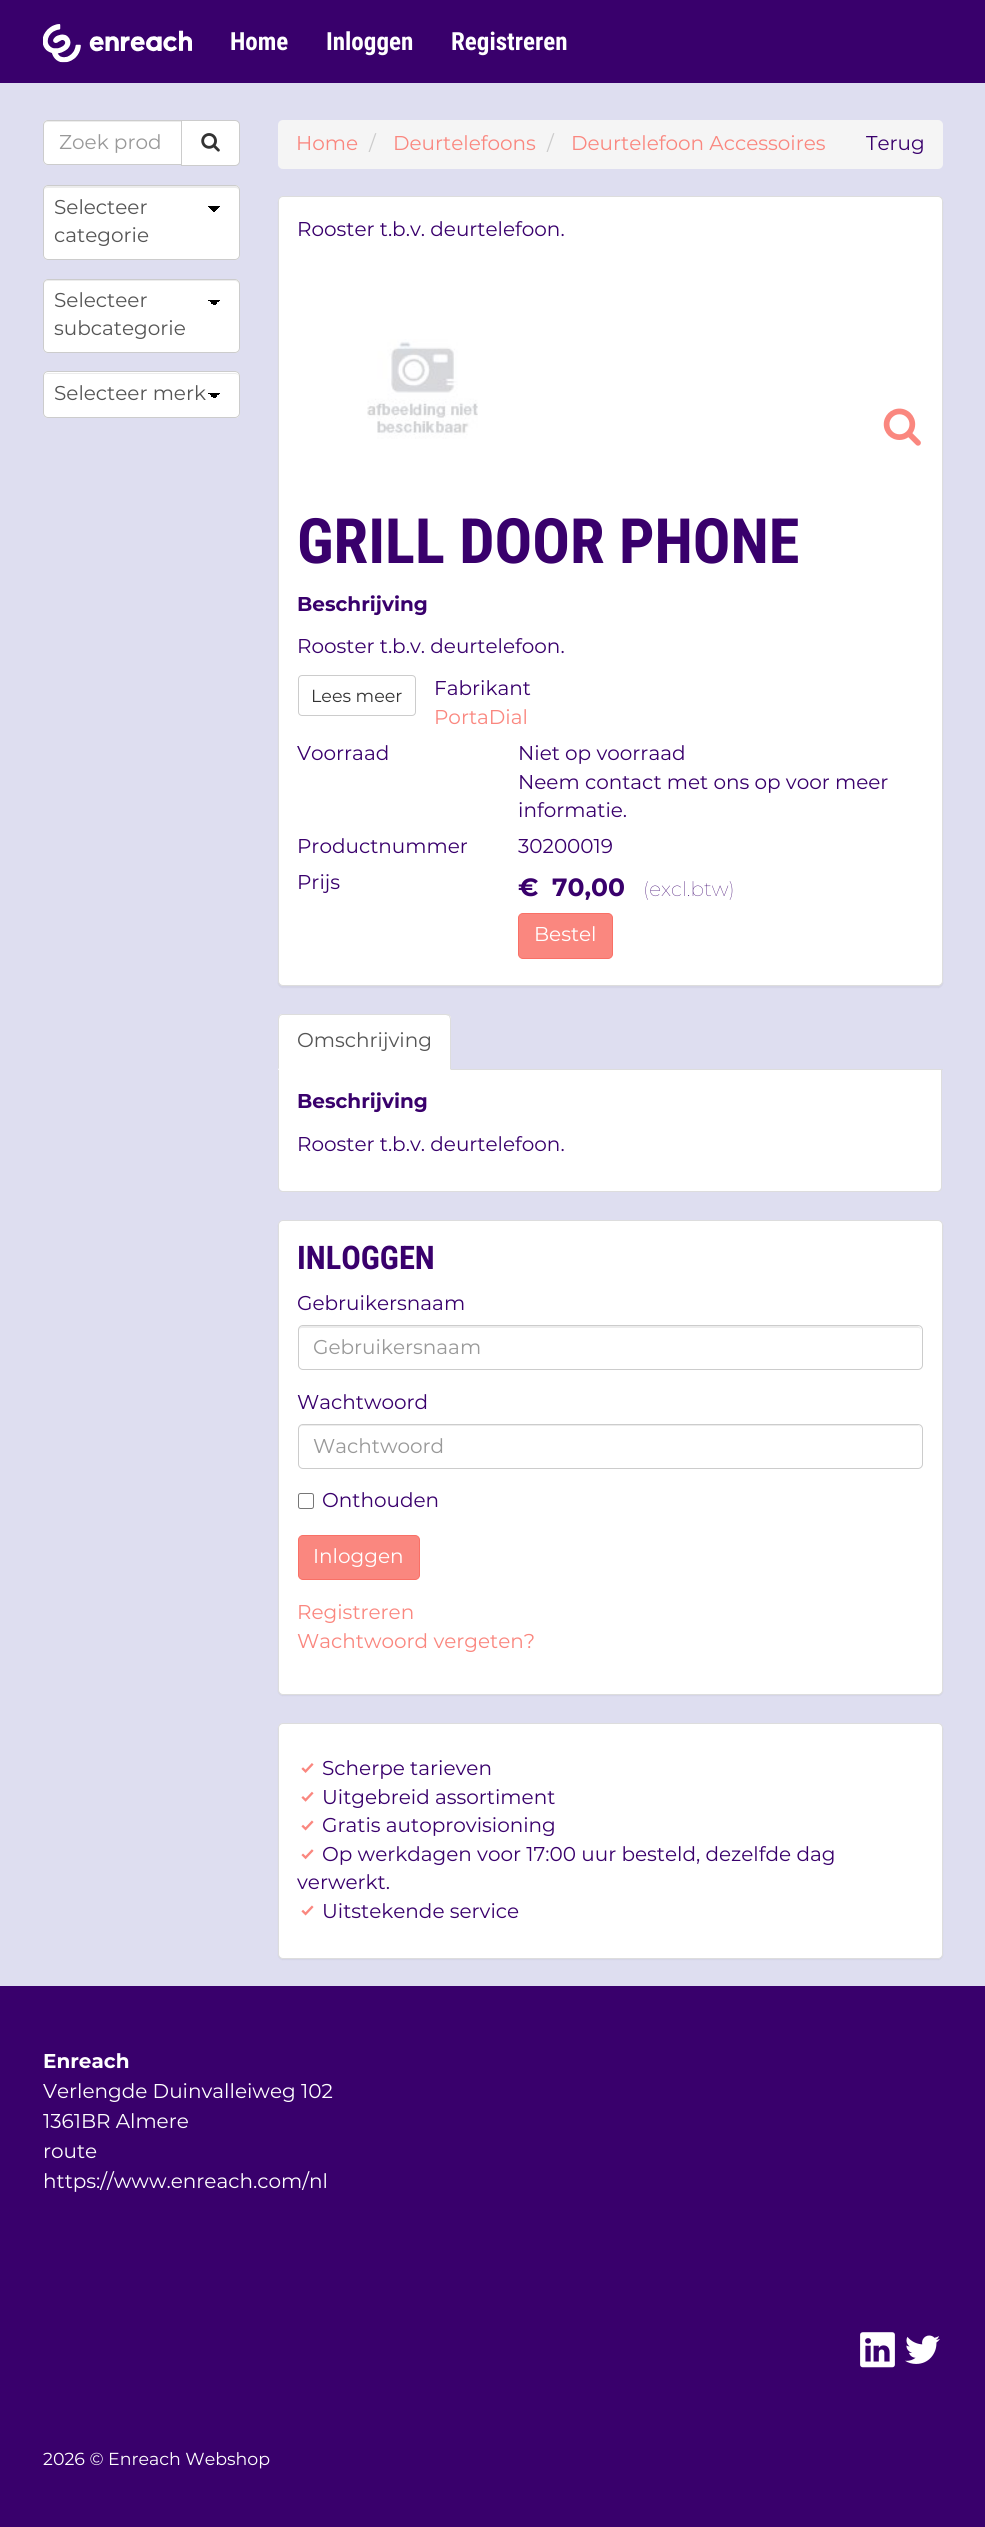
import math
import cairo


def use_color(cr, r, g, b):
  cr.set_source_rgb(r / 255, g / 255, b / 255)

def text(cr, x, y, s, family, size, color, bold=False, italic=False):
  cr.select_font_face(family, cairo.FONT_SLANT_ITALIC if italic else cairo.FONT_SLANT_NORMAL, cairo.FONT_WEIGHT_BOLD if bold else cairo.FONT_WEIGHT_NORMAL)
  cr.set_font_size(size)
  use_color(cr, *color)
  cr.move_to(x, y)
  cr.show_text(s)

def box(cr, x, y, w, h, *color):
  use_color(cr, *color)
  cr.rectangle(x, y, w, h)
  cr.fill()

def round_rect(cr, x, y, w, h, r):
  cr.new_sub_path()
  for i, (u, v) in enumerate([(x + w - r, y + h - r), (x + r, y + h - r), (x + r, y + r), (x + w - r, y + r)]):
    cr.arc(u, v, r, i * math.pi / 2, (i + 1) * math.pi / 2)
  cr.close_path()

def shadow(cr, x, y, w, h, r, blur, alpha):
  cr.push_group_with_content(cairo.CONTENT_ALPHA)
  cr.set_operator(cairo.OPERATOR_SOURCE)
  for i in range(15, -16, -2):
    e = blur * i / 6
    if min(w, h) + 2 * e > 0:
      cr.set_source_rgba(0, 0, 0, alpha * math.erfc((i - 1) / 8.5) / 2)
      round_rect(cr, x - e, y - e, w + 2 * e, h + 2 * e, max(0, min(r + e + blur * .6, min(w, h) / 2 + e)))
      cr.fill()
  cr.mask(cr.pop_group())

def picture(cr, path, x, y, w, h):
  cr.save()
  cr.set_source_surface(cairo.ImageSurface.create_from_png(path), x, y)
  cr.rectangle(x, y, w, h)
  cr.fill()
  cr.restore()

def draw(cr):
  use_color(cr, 222, 222, 240)
  cr.paint()
  box(cr, 0, 0, 985, 83, 57, 0, 108)
  picture(cr, "img_01.png", 43, 24, 149, 39)
  use_color(cr, 255, 255, 255)
  cr.new_path()
  cr.move_to(48, 120)
  cr.line_to(183, 120)
  cr.line_to(183, 165)
  cr.line_to(48, 165)
  cr.curve_to(45, 165, 43, 163, 43, 160)
  cr.line_to(43, 125)
  cr.curve_to(43, 122, 45, 120, 48, 120)
  cr.close_path()
  cr.fill()
  use_color(cr, 236, 236, 236)
  cr.new_path()
  cr.move_to(48, 122)
  cr.line_to(181, 122)
  cr.line_to(181, 121)
  cr.line_to(48, 121)
  cr.curve_to(46, 121, 44, 123, 44, 125)
  cr.line_to(44, 126)
  cr.curve_to(44, 124, 45, 122, 48, 122)
  cr.close_path()
  cr.fill()
  cr.new_path()
  cr.move_to(48, 120.5)
  cr.line_to(182.5, 120.5)
  cr.line_to(182.5, 164.5)
  cr.line_to(48, 164.5)
  cr.curve_to(45.5, 164.5, 43.5, 162.5, 43.5, 160)
  cr.line_to(43.5, 125)
  cr.curve_to(43.5, 122.5, 45.5, 120.5, 48, 120.5)
  cr.close_path()
  use_color(cr, 204, 204, 204)
  cr.set_line_width(1)
  cr.stroke()
  use_color(cr, 255, 255, 255)
  cr.new_path()
  cr.move_to(181.5, 120.5)
  cr.line_to(235, 120.5)
  cr.curve_to(237.5, 120.5, 239.5, 122.5, 239.5, 125)
  cr.line_to(239.5, 161)
  cr.curve_to(239.5, 163.5, 237.5, 165.5, 235, 165.5)
  cr.line_to(181.5, 165.5)
  cr.close_path()
  cr.fill_preserve()
  use_color(cr, 204, 204, 204)
  cr.stroke()
  picture(cr, "img_02.png", 201, 133, 19, 19)
  use_color(cr, 255, 255, 255)
  round_rect(cr, 43, 185, 197, 75, 5)
  cr.fill()
  box(cr, 238, 186, 1, 1, 255, 255, 255)
  gradient = cairo.LinearGradient(214, 206, 220, 213)
  gradient.add_color_stop_rgba(0.5, 0, 0, 0, 1)
  gradient.add_color_stop_rgba(0.5, 1, 1, 1, 1)
  cr.set_source(gradient)
  cr.rectangle(214, 206, 6, 7)
  cr.fill()
  gradient = cairo.LinearGradient(208, 213, 214, 206)
  gradient.add_color_stop_rgba(0.5, 1, 1, 1, 1)
  gradient.add_color_stop_rgba(0.5, 0, 0, 0, 1)
  cr.set_source(gradient)
  cr.rectangle(208, 206, 6, 7)
  cr.fill()
  use_color(cr, 236, 236, 236)
  cr.new_path()
  cr.move_to(48, 188)
  cr.line_to(235, 188)
  cr.curve_to(237, 188, 239, 189, 239, 191)
  cr.line_to(239, 190)
  cr.curve_to(239, 188, 237, 186, 235, 186)
  cr.line_to(48, 186)
  cr.curve_to(46, 186, 44, 188, 44, 190)
  cr.line_to(44, 191)
  cr.curve_to(44, 189, 45, 188, 48, 188)
  cr.close_path()
  cr.fill()
  round_rect(cr, 43.5, 185.5, 196, 74, 4.5)
  use_color(cr, 204, 204, 204)
  cr.stroke()
  use_color(cr, 255, 255, 255)
  round_rect(cr, 43, 279, 197, 74, 5)
  cr.fill()
  box(cr, 238, 280, 1, 1, 255, 255, 255)
  gradient = cairo.LinearGradient(214, 300, 220, 306)
  gradient.add_color_stop_rgba(0.5, 0, 0, 0, 1)
  gradient.add_color_stop_rgba(0.5, 1, 1, 1, 1)
  cr.set_source(gradient)
  cr.rectangle(214, 300, 6, 5)
  cr.fill()
  gradient = cairo.LinearGradient(208, 306, 214, 300)
  gradient.add_color_stop_rgba(0.5, 1, 1, 1, 1)
  gradient.add_color_stop_rgba(0.5, 0, 0, 0, 1)
  cr.set_source(gradient)
  cr.rectangle(208, 300, 6, 5)
  cr.fill()
  use_color(cr, 236, 236, 236)
  cr.new_path()
  cr.move_to(48, 281)
  cr.line_to(235, 281)
  cr.curve_to(237, 281, 239, 283, 239, 285)
  cr.line_to(239, 284)
  cr.curve_to(239, 282, 237, 280, 235, 280)
  cr.line_to(48, 280)
  cr.curve_to(46, 280, 44, 282, 44, 284)
  cr.line_to(44, 285)
  cr.curve_to(44, 283, 45, 281, 48, 281)
  cr.close_path()
  cr.fill()
  round_rect(cr, 43.5, 279.5, 196, 73, 4.5)
  use_color(cr, 204, 204, 204)
  cr.stroke()
  use_color(cr, 255, 255, 255)
  round_rect(cr, 43, 371, 197, 47, 5)
  cr.fill()
  cr.save()
  round_rect(cr, 43, 371, 197, 47, 5)
  cr.clip()
  box(cr, 189, 373, 50, 45, 255, 255, 255)
  cr.restore()
  gradient = cairo.LinearGradient(214, 393, 220, 399)
  gradient.add_color_stop_rgba(0.5, 0, 0, 0, 1)
  gradient.add_color_stop_rgba(0.5, 1, 1, 1, 1)
  cr.set_source(gradient)
  cr.rectangle(214, 393, 6, 5)
  cr.fill()
  gradient = cairo.LinearGradient(208, 399, 214, 393)
  gradient.add_color_stop_rgba(0.5, 1, 1, 1, 1)
  gradient.add_color_stop_rgba(0.5, 0, 0, 0, 1)
  cr.set_source(gradient)
  cr.rectangle(208, 393, 6, 5)
  cr.fill()
  use_color(cr, 236, 236, 236)
  cr.new_path()
  cr.move_to(48, 374)
  cr.line_to(235, 374)
  cr.curve_to(237, 374, 239, 375, 239, 378)
  cr.line_to(239, 377)
  cr.curve_to(239, 375, 237, 373, 235, 373)
  cr.line_to(48, 373)
  cr.curve_to(46, 373, 44, 375, 44, 377)
  cr.line_to(44, 378)
  cr.curve_to(44, 375, 45, 374, 48, 374)
  cr.close_path()
  cr.fill()
  round_rect(cr, 43.5, 371.5, 196, 46, 4.5)
  use_color(cr, 204, 204, 204)
  cr.stroke()
  use_color(cr, 245, 245, 245)
  round_rect(cr, 278, 120, 665, 49, 5)
  cr.fill()
  use_color(cr, 0, 0, 0)
  shadow(cr, 278, 198, 665, 790, 5, 0.5, 0.05)
  use_color(cr, 255, 255, 255)
  round_rect(cr, 278.5, 196.5, 664, 789, 4.5)
  cr.fill_preserve()
  use_color(cr, 221, 221, 221)
  cr.stroke()
  picture(cr, "img_03.png", 367, 339, 111, 100)
  picture(cr, "img_04.png", 883, 408, 38, 38)
  round_rect(cr, 298.5, 675.5, 117, 40, 3.5)
  use_color(cr, 204, 204, 204)
  cr.stroke()
  use_color(cr, 250, 135, 127)
  round_rect(cr, 518.5, 913.5, 94, 45, 4.5)
  cr.fill_preserve()
  use_color(cr, 249, 112, 102)
  cr.stroke()
  box(cr, 451, 1069, 492, 1, 221, 221, 221)
  use_color(cr, 255, 255, 255)
  cr.new_path()
  cr.move_to(283, 1014)
  cr.line_to(446, 1014)
  cr.curve_to(449, 1014, 451, 1016, 451, 1019)
  cr.line_to(451, 1070)
  cr.line_to(278, 1070)
  cr.line_to(278, 1019)
  cr.curve_to(278, 1016, 280, 1014, 283, 1014)
  cr.close_path()
  cr.fill()
  use_color(cr, 221, 221, 221)
  cr.new_path()
  cr.move_to(282, 1014)
  cr.curve_to(281, 1014, 280, 1015, 279, 1015)
  cr.line_to(280, 1016)
  cr.line_to(282, 1015)
  cr.line_to(446, 1015)
  cr.line_to(449, 1016)
  cr.line_to(450, 1015)
  cr.curve_to(449, 1014, 448, 1014, 446, 1014)
  cr.close_path()
  cr.fill()
  cr.new_path()
  cr.move_to(451, 1070)
  cr.line_to(451, 1019)
  cr.curve_to(451, 1018, 450, 1016, 450, 1015)
  cr.line_to(449, 1016)
  cr.line_to(450, 1019)
  cr.line_to(450, 1069)
  cr.close_path()
  cr.fill()
  cr.new_path()
  cr.move_to(279, 1015)
  cr.curve_to(278, 1016, 278, 1018, 278, 1019)
  cr.line_to(278, 1070)
  cr.line_to(279, 1068)
  cr.line_to(279, 1019)
  cr.line_to(280, 1016)
  cr.close_path()
  cr.fill()
  use_color(cr, 255, 255, 255)
  cr.new_path()
  cr.move_to(279, 1070)
  cr.line_to(941, 1070)
  cr.line_to(941, 1187)
  cr.curve_to(941, 1189, 939, 1191, 937, 1191)
  cr.line_to(283, 1191)
  cr.curve_to(281, 1191, 279, 1189, 279, 1187)
  cr.close_path()
  cr.fill()
  use_color(cr, 221, 221, 221)
  cr.set_fill_rule(cairo.FILL_RULE_EVEN_ODD)
  cr.new_path()
  cr.move_to(278, 1070)
  cr.line_to(942, 1070)
  cr.line_to(942, 1188)
  cr.curve_to(942, 1190, 940, 1192, 938, 1192)
  cr.line_to(282, 1192)
  cr.curve_to(280, 1192, 278, 1190, 278, 1188)
  cr.close_path()
  cr.move_to(279, 1070)
  cr.line_to(941, 1070)
  cr.line_to(941, 1188)
  cr.curve_to(941, 1190, 940, 1191, 938, 1191)
  cr.line_to(282, 1191)
  cr.curve_to(280, 1191, 279, 1190, 279, 1188)
  cr.close_path()
  cr.fill()
  use_color(cr, 0, 0, 0)
  shadow(cr, 278, 1221, 665, 475, 5, 0.5, 0.05)
  use_color(cr, 255, 255, 255)
  round_rect(cr, 278.5, 1220.5, 664, 474, 4.5)
  cr.fill_preserve()
  use_color(cr, 221, 221, 221)
  cr.stroke()
  use_color(cr, 236, 236, 236)
  cr.set_fill_rule(cairo.FILL_RULE_WINDING)
  cr.new_path()
  cr.move_to(302, 1328)
  cr.line_to(918, 1328)
  cr.curve_to(920, 1328, 921, 1329, 921, 1331)
  cr.line_to(921, 1330)
  cr.curve_to(921, 1328, 919, 1326, 917, 1326)
  cr.line_to(303, 1326)
  cr.curve_to(301, 1326, 299, 1328, 299, 1330)
  cr.line_to(299, 1331)
  cr.curve_to(299, 1329, 300, 1328, 302, 1328)
  cr.close_path()
  cr.fill()
  round_rect(cr, 298.5, 1325.5, 624, 44, 4.5)
  use_color(cr, 204, 204, 204)
  cr.stroke()
  use_color(cr, 236, 236, 236)
  cr.new_path()
  cr.move_to(302, 1426)
  cr.line_to(918, 1426)
  cr.curve_to(920, 1426, 921, 1428, 921, 1430)
  cr.line_to(921, 1429)
  cr.curve_to(921, 1427, 919, 1425, 917, 1425)
  cr.line_to(303, 1425)
  cr.curve_to(301, 1425, 299, 1427, 299, 1429)
  cr.line_to(299, 1430)
  cr.curve_to(299, 1428, 300, 1426, 302, 1426)
  cr.close_path()
  cr.fill()
  round_rect(cr, 298.5, 1424.5, 624, 44, 4.5)
  use_color(cr, 204, 204, 204)
  cr.stroke()
  round_rect(cr, 298.5, 1493.5, 15, 15, 2)
  use_color(cr, 118, 118, 118)
  cr.stroke()
  use_color(cr, 250, 135, 127)
  round_rect(cr, 298.5, 1535.5, 121, 44, 4.5)
  cr.fill_preserve()
  use_color(cr, 249, 112, 102)
  cr.stroke()
  use_color(cr, 0, 0, 0)
  shadow(cr, 278, 1724, 665, 236, 5, 0.5, 0.05)
  use_color(cr, 255, 255, 255)
  round_rect(cr, 278.5, 1723.5, 664, 235, 4.5)
  cr.fill_preserve()
  use_color(cr, 221, 221, 221)
  cr.stroke()
  picture(cr, "img_05.png", 301, 1763, 13, 10)
  picture(cr, "img_06.png", 301, 1791, 13, 11)
  picture(cr, "img_07.png", 301, 1820, 13, 11)
  picture(cr, "img_08.png", 301, 1849, 13, 11)
  picture(cr, "img_07.png", 301, 1905, 13, 11)
  box(cr, 0, 1986, 985, 541, 57, 0, 108)
  picture(cr, "img_09.png", 860, 2332, 35, 36)
  picture(cr, "img_10.png", 905, 2335, 35, 29)
  text(cr, 230, 50, "Home", "Roboto Condensed", 25, (255, 255, 255), bold=True)
  text(cr, 326, 50, "Inloggen", "Roboto Condensed", 25, (255, 255, 255), bold=True)
  text(cr, 451, 50, "Registreren", "Roboto Condensed", 25, (255, 255, 255), bold=True)
  text(cr, 59, 149, "Zoek prod", "Montserrat", 20, (153, 153, 153))
  text(cr, 54, 214, "Selecteer", "Montserrat", 20, (85, 85, 85))
  text(cr, 54, 242, "categorie", "Montserrat", 20, (85, 85, 85))
  text(cr, 54, 307, "Selecteer", "Montserrat", 20, (85, 85, 85))
  text(cr, 54, 335, "subcategorie", "Montserrat", 20, (85, 85, 85))
  text(cr, 54, 400, "Selecteer merk", "Montserrat", 20, (85, 85, 85))
  text(cr, 296, 150, "Home", "Montserrat", 20, (250, 135, 127))
  text(cr, 369, 150, "/", "Montserrat", 20, (204, 204, 204))
  text(cr, 393, 150, "Deurtelefoons", "Montserrat", 20, (250, 135, 127))
  text(cr, 547, 150, "/", "Montserrat", 20, (204, 204, 204))
  text(cr, 571, 150, "Deurtelefoon Accessoires", "Montserrat", 20, (250, 135, 127))
  text(cr, 866, 150, "Terug", "Montserrat", 20, (57, 0, 108))
  text(cr, 297, 236, "Rooster t.b.v. deurtelefoon.", "Montserrat", 20, (57, 0, 108))
  text(cr, 297, 563, "GRILL DOOR PHONE", "Roboto Condensed", 62.5, (57, 0, 108), bold=True)
  text(cr, 297, 611, "Beschrijving", "Montserrat", 20, (57, 0, 108), bold=True)
  text(cr, 297, 653, "Rooster t.b.v. deurtelefoon.", "Montserrat", 20, (57, 0, 108))
  text(cr, 311, 702, "Lees meer", "Montserrat", 17.5, (51, 51, 51))
  text(cr, 434, 695, "Fabrikant", "Montserrat", 20, (57, 0, 108))
  text(cr, 434, 724, "PortaDial", "Montserrat", 20, (250, 135, 127))
  text(cr, 297, 760, "Voorraad", "Montserrat", 20, (57, 0, 108))
  text(cr, 518, 760, "Niet op voorraad", "Montserrat", 20, (57, 0, 108))
  text(cr, 518, 789, "Neem contact met ons op voor meer", "Montserrat", 20, (57, 0, 108))
  text(cr, 518, 817, "informatie.", "Montserrat", 20, (57, 0, 108))
  text(cr, 297, 853, "Productnummer", "Montserrat", 20, (57, 0, 108))
  text(cr, 518, 853, "30200019", "Montserrat", 20, (57, 0, 108))
  text(cr, 297, 889, "Prijs", "Montserrat", 20, (57, 0, 108))
  text(cr, 518, 896, "€", "Montserrat", 25, (57, 0, 108), bold=True)
  text(cr, 552, 896, "70,00", "Montserrat", 25, (57, 0, 108), bold=True)
  text(cr, 643, 896, "(excl.btw)", "Montserrat Thin", 20, (57, 0, 108))
  text(cr, 534, 941, "Bestel", "Montserrat", 20, (255, 255, 255))
  text(cr, 297, 1047, "Omschrijving", "Montserrat", 20, (85, 85, 85))
  text(cr, 297, 1108, "Beschrijving", "Montserrat", 20, (57, 0, 108), bold=True)
  text(cr, 297, 1151, "Rooster t.b.v. deurtelefoon.", "Montserrat", 20, (57, 0, 108))
  text(cr, 297, 1269, "INLOGGEN", "Roboto Condensed", 32.5, (57, 0, 108), bold=True)
  text(cr, 297, 1310, "Gebruikersnaam", "Montserrat", 20, (57, 0, 108))
  text(cr, 313, 1354, "Gebruikersnaam", "Montserrat", 20, (153, 153, 153))
  text(cr, 297, 1409, "Wachtwoord", "Montserrat", 20, (57, 0, 108))
  text(cr, 313, 1453, "Wachtwoord", "Montserrat", 20, (153, 153, 153))
  text(cr, 322, 1507, "Onthouden", "Montserrat", 20, (57, 0, 108))
  text(cr, 313, 1563, "Inloggen", "Montserrat", 20, (255, 255, 255))
  text(cr, 297, 1619, "Registreren", "Montserrat", 20, (250, 135, 127))
  text(cr, 297, 1648, "Wachtwoord vergeten?", "Montserrat", 20, (250, 135, 127))
  text(cr, 322, 1775, "Scherpe tarieven", "Montserrat", 20, (57, 0, 108))
  text(cr, 322, 1804, "Uitgebreid assortiment", "Montserrat", 20, (57, 0, 108))
  text(cr, 322, 1832, "Gratis autoprovisioning", "Montserrat", 20, (57, 0, 108))
  text(cr, 322, 1861, "Op werkdagen voor 17:00 uur besteld, dezelfde dag", "Montserrat", 20, (57, 0, 108))
  text(cr, 297, 1889, "verwerkt.", "Montserrat", 20, (57, 0, 108))
  text(cr, 322, 1918, "Uitstekende service", "Montserrat", 20, (57, 0, 108))
  text(cr, 43, 2068, "Enreach", "Montserrat", 20, (255, 255, 255), bold=True)
  text(cr, 43, 2098, "Verlengde Duinvalleiweg 102", "Montserrat", 20, (255, 255, 255))
  text(cr, 43, 2128, "1361BR Almere", "Montserrat", 20, (255, 255, 255))
  text(cr, 43, 2158, "route", "Montserrat", 20, (255, 255, 255))
  text(cr, 43, 2188, "https://www.enreach.com/nl", "Montserrat", 20, (255, 255, 255))
  text(cr, 43, 2465, "2026 © Enreach Webshop", "Montserrat", 17.4, (255, 255, 255))


surface = cairo.ImageSurface(cairo.FORMAT_RGB24, 985, 2527)
cr = cairo.Context(surface)
options = cairo.FontOptions()
options.set_hint_metrics(cairo.HINT_METRICS_OFF)
options.set_hint_style(cairo.HINT_STYLE_NONE)
cr.set_font_options(options)
cr.set_miter_limit(4)
draw(cr)
surface.write_to_png("out.png")
